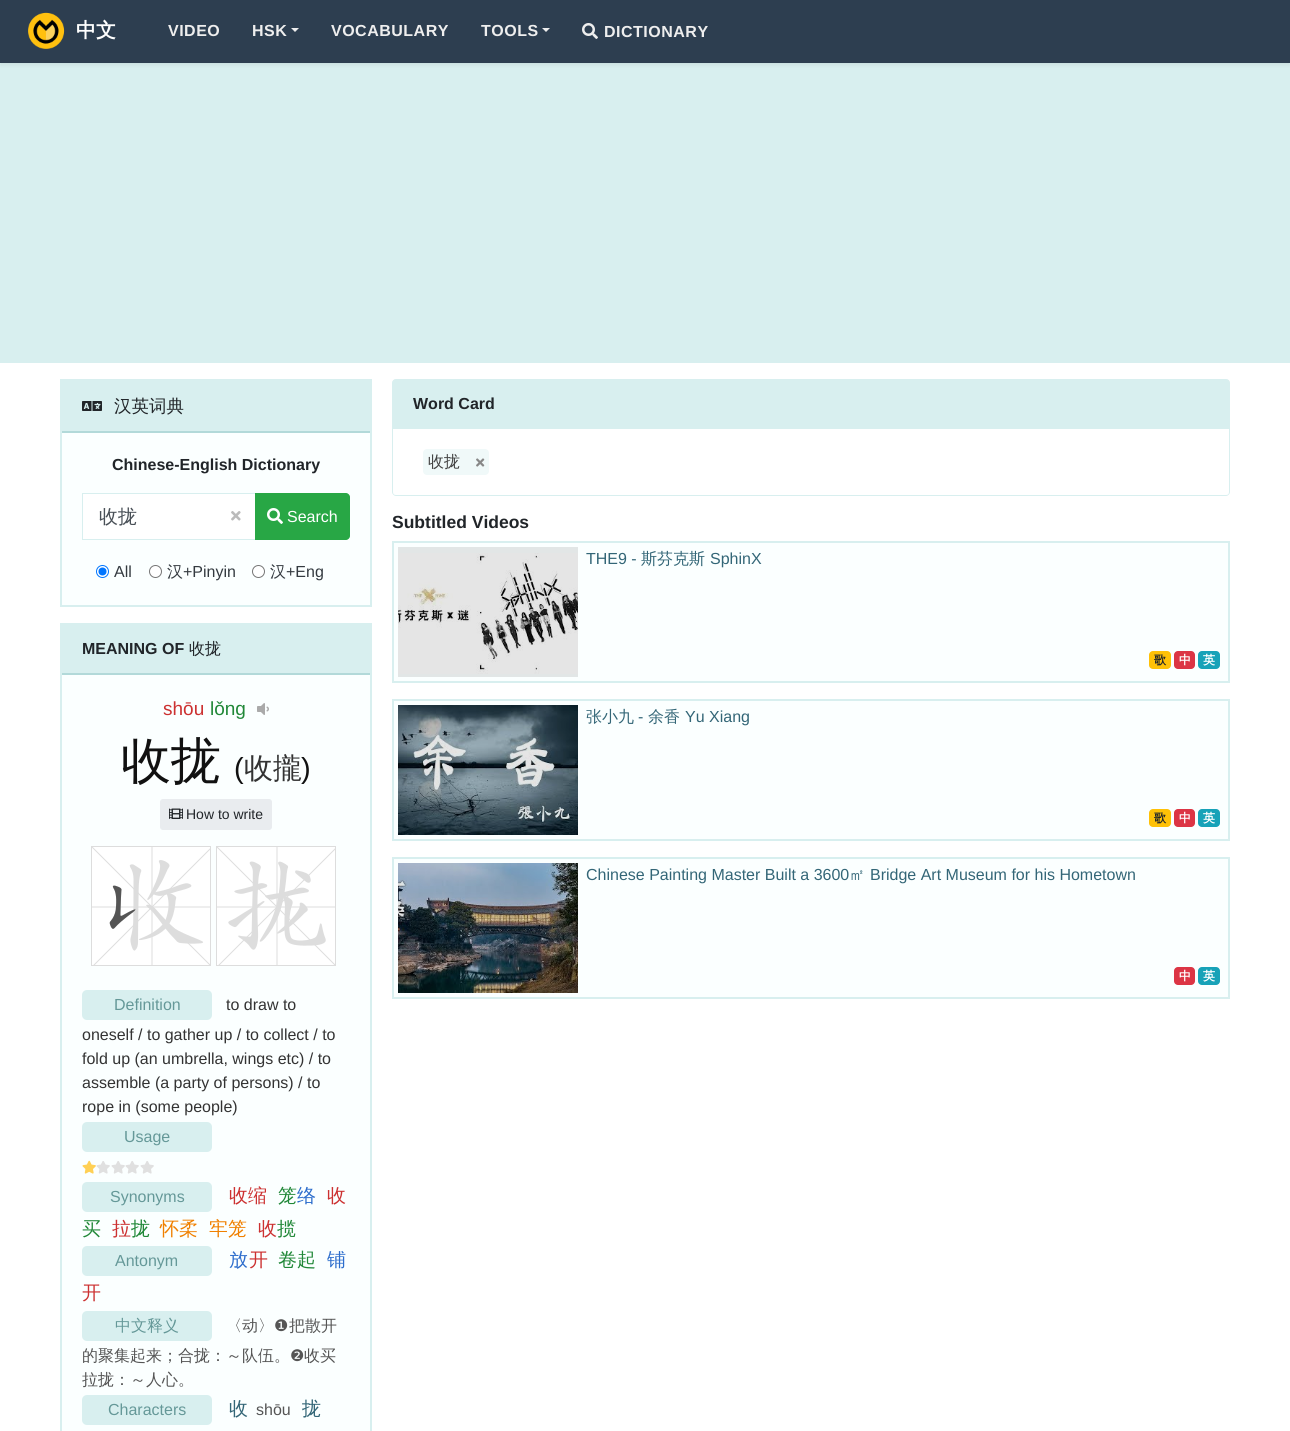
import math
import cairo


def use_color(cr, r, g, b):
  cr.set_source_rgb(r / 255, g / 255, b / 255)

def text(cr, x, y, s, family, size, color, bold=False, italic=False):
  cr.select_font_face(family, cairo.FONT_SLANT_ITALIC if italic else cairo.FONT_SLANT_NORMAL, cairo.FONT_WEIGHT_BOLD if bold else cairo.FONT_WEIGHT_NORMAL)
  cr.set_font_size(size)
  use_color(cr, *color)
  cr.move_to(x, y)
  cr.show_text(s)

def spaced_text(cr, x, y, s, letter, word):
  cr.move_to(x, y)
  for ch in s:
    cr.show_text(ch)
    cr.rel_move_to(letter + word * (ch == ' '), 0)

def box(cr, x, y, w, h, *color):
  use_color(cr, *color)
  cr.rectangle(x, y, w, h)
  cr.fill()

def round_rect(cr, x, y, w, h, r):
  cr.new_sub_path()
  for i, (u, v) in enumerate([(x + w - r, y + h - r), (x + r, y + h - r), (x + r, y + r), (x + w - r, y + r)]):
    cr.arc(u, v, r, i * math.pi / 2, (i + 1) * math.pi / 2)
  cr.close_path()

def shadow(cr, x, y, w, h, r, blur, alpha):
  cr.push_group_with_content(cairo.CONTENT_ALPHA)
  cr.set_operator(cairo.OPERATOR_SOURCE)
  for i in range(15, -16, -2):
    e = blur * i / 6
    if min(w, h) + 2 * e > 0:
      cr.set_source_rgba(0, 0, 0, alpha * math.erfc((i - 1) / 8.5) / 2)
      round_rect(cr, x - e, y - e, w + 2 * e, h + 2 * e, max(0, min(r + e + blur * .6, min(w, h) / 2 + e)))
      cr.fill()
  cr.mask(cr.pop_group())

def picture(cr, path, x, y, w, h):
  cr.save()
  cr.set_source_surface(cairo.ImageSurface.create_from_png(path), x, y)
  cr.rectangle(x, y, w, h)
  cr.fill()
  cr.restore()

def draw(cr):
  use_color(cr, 255, 255, 255)
  cr.paint()
  box(cr, 0, 63, 1290, 300, 216, 239, 239)
  use_color(cr, 0, 0, 0)
  shadow(cr, 0, 2, 1290, 63, 0, 2, 0.07)
  box(cr, 0, 0, 1290, 63, 45, 62, 80)
  picture(cr, "img_01.png", 28, 12, 37, 37)
  use_color(cr, 238, 238, 238)
  cr.new_path()
  cr.move_to(291, 28)
  cr.line_to(299, 28)
  cr.line_to(295, 32)
  cr.close_path()
  cr.fill()
  cr.new_path()
  cr.move_to(542, 28)
  cr.line_to(550, 28)
  cr.line_to(546, 32)
  cr.close_path()
  cr.fill()
  picture(cr, "img_02.png", 582, 23, 16, 16)
  box(cr, 62, 433, 308, 172, 251, 255, 255)
  cr.rectangle(61, 380, 310, 226)
  use_color(cr, 216, 239, 239)
  cr.stroke()
  box(cr, 62, 381, 308, 50, 216, 239, 239)
  box(cr, 62, 431, 308, 2, 178, 217, 217)
  picture(cr, "img_03.png", 82, 401, 20, 10)
  use_color(cr, 255, 255, 255)
  cr.rectangle(82.5, 493.5, 134, 46)
  cr.fill_preserve()
  use_color(cr, 216, 239, 239)
  cr.set_line_width(1)
  cr.stroke()
  box(cr, 216, 494, 39, 45, 255, 255, 255)
  box(cr, 216, 493, 40, 1, 216, 239, 239)
  box(cr, 216, 539, 40, 1, 216, 239, 239)
  picture(cr, "img_04.png", 231, 511, 10, 10)
  use_color(cr, 40, 167, 69)
  cr.new_path()
  cr.move_to(255, 493)
  cr.line_to(346, 493)
  cr.curve_to(348, 493, 350, 495, 350, 497)
  cr.line_to(350, 536)
  cr.curve_to(350, 538, 348, 540, 346, 540)
  cr.line_to(255, 540)
  cr.close_path()
  cr.fill()
  picture(cr, "img_05.png", 267, 508, 16, 16)
  use_color(cr, 255, 255, 255)
  cr.arc(102.5, 571.5, 6, 0, 2 * math.pi)
  cr.fill_preserve()
  use_color(cr, 0, 117, 255)
  cr.stroke()
  cr.arc(102.5, 571.5, 4, 0, 2 * math.pi)
  cr.fill()
  use_color(cr, 255, 255, 255)
  cr.arc(155.5, 571.5, 6, 0, 2 * math.pi)
  cr.fill_preserve()
  use_color(cr, 118, 118, 118)
  cr.stroke()
  use_color(cr, 255, 255, 255)
  cr.arc(258.5, 571.5, 6, 0, 2 * math.pi)
  cr.fill_preserve()
  use_color(cr, 118, 118, 118)
  cr.stroke()
  box(cr, 62, 675, 308, 756, 251, 255, 255)
  cr.rectangle(61, 624, 310, 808)
  use_color(cr, 216, 239, 239)
  cr.set_line_width(2)
  cr.stroke()
  box(cr, 62, 625, 308, 48, 216, 239, 239)
  box(cr, 62, 673, 308, 2, 178, 217, 217)
  picture(cr, "img_06.png", 257, 703, 12, 12)
  use_color(cr, 233, 236, 239)
  round_rect(cr, 160.5, 799.5, 111, 30, 2.5)
  cr.fill_preserve()
  cr.set_line_width(1)
  cr.stroke()
  picture(cr, "img_07.png", 169, 808, 14, 11)
  use_color(cr, 255, 255, 255)
  cr.rectangle(91.5, 846.5, 119, 119)
  cr.fill_preserve()
  use_color(cr, 221, 221, 221)
  cr.stroke()
  use_color(cr, 255, 255, 255)
  cr.rectangle(216.5, 846.5, 119, 119)
  cr.fill_preserve()
  use_color(cr, 221, 221, 221)
  cr.stroke()
  picture(cr, "img_08.png", 92, 847, 118, 118)
  picture(cr, "img_09.png", 217, 847, 118, 118)
  use_color(cr, 216, 239, 239)
  round_rect(cr, 82, 990, 130, 30, 5)
  cr.fill()
  round_rect(cr, 82, 1122, 130, 30, 5)
  cr.fill()
  picture(cr, "img_10.png", 82, 1160, 14, 14)
  picture(cr, "img_11.png", 96, 1161, 14, 13)
  picture(cr, "img_11.png", 111, 1161, 14, 13)
  picture(cr, "img_11.png", 125, 1161, 14, 13)
  picture(cr, "img_11.png", 140, 1161, 14, 13)
  round_rect(cr, 82, 1182, 130, 30, 5)
  cr.fill()
  round_rect(cr, 82, 1246, 130, 30, 5)
  cr.fill()
  round_rect(cr, 82, 1311, 130, 30, 5)
  cr.fill()
  round_rect(cr, 82, 1395, 130, 30, 5)
  cr.fill()
  cr.new_path()
  cr.move_to(396, 379.5)
  cr.line_to(1226, 379.5)
  cr.curve_to(1228, 379.5, 1229.5, 381, 1229.5, 383)
  cr.line_to(1229.5, 428.5)
  cr.line_to(392.5, 428.5)
  cr.line_to(392.5, 383)
  cr.curve_to(392.5, 381, 394, 379.5, 396, 379.5)
  cr.close_path()
  cr.fill_preserve()
  cr.stroke()
  cr.set_fill_rule(cairo.FILL_RULE_EVEN_ODD)
  cr.new_path()
  cr.move_to(392, 429)
  cr.line_to(1230, 429)
  cr.line_to(1230, 492)
  cr.curve_to(1230, 494, 1228, 496, 1226, 496)
  cr.line_to(396, 496)
  cr.curve_to(394, 496, 392, 494, 392, 492)
  cr.close_path()
  cr.move_to(393, 429)
  cr.line_to(1229, 429)
  cr.line_to(1229, 492)
  cr.curve_to(1229, 494, 1228, 495, 1226, 495)
  cr.line_to(396, 495)
  cr.curve_to(394, 495, 393, 494, 393, 492)
  cr.close_path()
  cr.fill()
  use_color(cr, 240, 249, 249)
  round_rect(cr, 423, 449, 66, 26, 4)
  cr.fill()
  picture(cr, "img_12.png", 476, 458, 9, 9)
  box(cr, 394, 543, 834, 138, 251, 255, 255)
  box(cr, 398, 547, 180, 130, 226, 230, 230)
  cr.rectangle(393, 542, 836, 140)
  use_color(cr, 216, 239, 239)
  cr.set_line_width(2)
  cr.stroke()
  picture(cr, "img_13.png", 398, 553, 180, 121)
  use_color(cr, 255, 193, 7)
  round_rect(cr, 1149, 651, 22, 18, 4)
  cr.fill()
  use_color(cr, 220, 53, 69)
  round_rect(cr, 1174, 651, 21, 18, 4)
  cr.fill()
  use_color(cr, 23, 162, 184)
  round_rect(cr, 1198, 651, 22, 18, 4)
  cr.fill()
  use_color(cr, 251, 255, 255)
  cr.rectangle(393, 700, 836, 140)
  cr.fill_preserve()
  use_color(cr, 216, 239, 239)
  cr.stroke()
  picture(cr, "img_14.png", 398, 705, 180, 130)
  use_color(cr, 255, 193, 7)
  round_rect(cr, 1149, 809, 22, 18, 4)
  cr.fill()
  use_color(cr, 220, 53, 69)
  round_rect(cr, 1174, 809, 21, 18, 4)
  cr.fill()
  use_color(cr, 23, 162, 184)
  round_rect(cr, 1198, 809, 22, 18, 4)
  cr.fill()
  use_color(cr, 251, 255, 255)
  cr.rectangle(393, 858, 836, 140)
  cr.fill_preserve()
  use_color(cr, 216, 239, 239)
  cr.stroke()
  picture(cr, "img_15.png", 398, 863, 180, 130)
  use_color(cr, 220, 53, 69)
  round_rect(cr, 1174, 967, 21, 18, 4)
  cr.fill()
  use_color(cr, 23, 162, 184)
  round_rect(cr, 1198, 967, 22, 18, 4)
  cr.fill()
  text(cr, 76, 37, "中文", "WenQuanYi Zen Hei", 20, (255, 255, 255), bold=True)
  cr.select_font_face("Liberation Sans", cairo.FONT_SLANT_NORMAL, cairo.FONT_WEIGHT_BOLD)
  cr.set_font_size(16)
  use_color(cr, 238, 238, 238)
  spaced_text(cr, 168, 36, "VIDEO", 0.5, 0)
  spaced_text(cr, 252, 36, "HSK", 0.5, 0)
  spaced_text(cr, 331, 36, "VOCABULARY", 0.5, 0)
  spaced_text(cr, 481, 36, "TOOLS", 0.5, 0)
  spaced_text(cr, 604, 37, "DICTIONARY", 0.5, 0)
  text(cr, 114, 412, "汉英词典", "WenQuanYi Zen Hei Medium", 17.5, (33, 37, 41))
  text(cr, 112, 470, "Chinese-English Dictionary", "Liberation Sans", 16, (33, 37, 41), bold=True)
  text(cr, 99, 523, "收拢", "WenQuanYi Zen Hei Medium", 19, (73, 80, 87))
  text(cr, 287, 522, "Search", "Liberation Sans", 16, (255, 255, 255))
  text(cr, 114, 577, "All", "Liberation Sans", 16, (52, 58, 64))
  text(cr, 167, 577, "汉", "WenQuanYi Zen Hei Medium", 16, (52, 58, 64))
  text(cr, 183, 577, "+Pinyin", "Liberation Sans", 16, (52, 58, 64))
  text(cr, 270, 577, "汉", "WenQuanYi Zen Hei Medium", 16, (52, 58, 64))
  text(cr, 286, 577, "+Eng", "Liberation Sans", 16, (52, 58, 64))
  text(cr, 82, 654, "MEANING OF", "Liberation Sans", 16, (33, 37, 41), bold=True)
  text(cr, 189, 654, "收拢", "WenQuanYi Zen Hei Medium", 16, (33, 37, 41))
  text(cr, 163, 715, "shōu", "Liberation Sans", 19, (204, 49, 49))
  text(cr, 210, 715, "lǒng", "Liberation Sans", 19, (33, 136, 56))
  text(cr, 121, 778, "收拢", "WenQuanYi Zen Hei Medium", 50, (17, 17, 17))
  text(cr, 234, 778, "(", "Liberation Sans", 29, (17, 17, 17))
  text(cr, 244, 778, "收攏", "WenQuanYi Zen Hei Medium", 29, (51, 51, 51))
  text(cr, 301, 778, ")", "Liberation Sans", 29, (17, 17, 17))
  text(cr, 186, 819, "How to write", "Liberation Sans", 14, (33, 37, 41))
  text(cr, 114, 1010, "Definition", "Liberation Sans", 16, (101, 152, 152))
  text(cr, 226, 1010, "to draw to", "Liberation Sans", 16, (51, 51, 51))
  text(cr, 82, 1040, "oneself / to gather up / to collect / to", "Liberation Sans", 16, (51, 51, 51))
  text(cr, 82, 1064, "fold up (an umbrella, wings etc) / to", "Liberation Sans", 16, (51, 51, 51))
  text(cr, 82, 1088, "assemble (a party of persons) / to", "Liberation Sans", 16, (51, 51, 51))
  text(cr, 82, 1112, "rope in (some people)", "Liberation Sans", 16, (51, 51, 51))
  text(cr, 124, 1142, "Usage", "Liberation Sans", 16, (101, 152, 152))
  text(cr, 110, 1202, "Synonyms", "Liberation Sans", 16, (101, 152, 152))
  text(cr, 229, 1202, "收缩", "WenQuanYi Zen Hei Medium", 19, (204, 49, 49))
  text(cr, 278, 1202, "笼", "WenQuanYi Zen Hei Medium", 19, (33, 136, 56))
  text(cr, 297, 1202, "络", "WenQuanYi Zen Hei Medium", 19, (45, 109, 204))
  text(cr, 327, 1202, "收", "WenQuanYi Zen Hei Medium", 19, (204, 49, 49))
  text(cr, 82, 1235, "买", "WenQuanYi Zen Hei Medium", 19, (33, 136, 56))
  text(cr, 112, 1235, "拉", "WenQuanYi Zen Hei Medium", 19, (204, 49, 49))
  text(cr, 131, 1235, "拢", "WenQuanYi Zen Hei Medium", 19, (33, 136, 56))
  text(cr, 160, 1235, "怀柔", "WenQuanYi Zen Hei Medium", 19, (240, 128, 0))
  text(cr, 209, 1235, "牢笼", "WenQuanYi Zen Hei Medium", 19, (240, 128, 0))
  text(cr, 258, 1235, "收", "WenQuanYi Zen Hei Medium", 19, (204, 49, 49))
  text(cr, 277, 1235, "揽", "WenQuanYi Zen Hei Medium", 19, (33, 136, 56))
  text(cr, 115, 1266, "Antonym", "Liberation Sans", 16, (101, 152, 152))
  text(cr, 229, 1266, "放", "WenQuanYi Zen Hei Medium", 19, (45, 109, 204))
  text(cr, 249, 1266, "开", "WenQuanYi Zen Hei Medium", 19, (204, 49, 49))
  text(cr, 278, 1266, "卷起", "WenQuanYi Zen Hei Medium", 19, (33, 136, 56))
  text(cr, 327, 1266, "铺", "WenQuanYi Zen Hei Medium", 19, (45, 109, 204))
  text(cr, 82, 1299, "开", "WenQuanYi Zen Hei Medium", 19, (204, 49, 49))
  text(cr, 115, 1331, "中文释义", "WenQuanYi Zen Hei Medium", 16, (101, 152, 152))
  text(cr, 226, 1331, "〈动〉", "WenQuanYi Zen Hei Medium", 16, (85, 85, 85))
  text(cr, 274, 1331, "❶", "DejaVu Sans", 16, (85, 85, 85))
  text(cr, 289, 1331, "把散开", "WenQuanYi Zen Hei Medium", 16, (85, 85, 85))
  text(cr, 82, 1361, "的聚集起来；合拢：～队伍。", "WenQuanYi Zen Hei Medium", 16, (85, 85, 85))
  text(cr, 290, 1361, "❷", "DejaVu Sans", 16, (85, 85, 85))
  text(cr, 304, 1361, "收买", "WenQuanYi Zen Hei Medium", 16, (85, 85, 85))
  text(cr, 82, 1385, "拉拢：～人心。", "WenQuanYi Zen Hei Medium", 16, (85, 85, 85))
  text(cr, 108, 1415, "Characters", "Liberation Sans", 16, (101, 152, 152))
  text(cr, 229, 1415, "收", "WenQuanYi Zen Hei Medium", 19, (51, 102, 119))
  text(cr, 256, 1415, "shōu", "Liberation Sans", 16, (85, 85, 85))
  text(cr, 302, 1415, "拢", "WenQuanYi Zen Hei Medium", 19, (51, 102, 119))
  text(cr, 413, 409, "Word Card", "Liberation Sans", 16, (33, 37, 41), bold=True)
  text(cr, 428, 467, "收拢", "WenQuanYi Zen Hei Medium", 16, (68, 68, 68))
  text(cr, 392, 528, "Subtitled Videos", "Liberation Sans", 17.5, (33, 37, 41), bold=True)
  text(cr, 586, 564, "THE9 -", "Liberation Sans", 16, (51, 102, 119))
  text(cr, 641, 564, "斯芬克斯", "WenQuanYi Zen Hei Medium", 16, (51, 102, 119))
  text(cr, 710, 564, "SphinX", "Liberation Sans", 16, (51, 102, 119))
  text(cr, 1154, 664, "歌", "WenQuanYi Zen Hei", 12, (33, 37, 41), bold=True)
  text(cr, 1179, 664, "中", "WenQuanYi Zen Hei", 12, (255, 255, 255), bold=True)
  text(cr, 1203, 664, "英", "WenQuanYi Zen Hei", 12, (255, 255, 255), bold=True)
  text(cr, 586, 722, "张小九", "WenQuanYi Zen Hei Medium", 16, (51, 102, 119))
  text(cr, 638, 722, "-", "Liberation Sans", 16, (51, 102, 119))
  text(cr, 648, 722, "余香", "WenQuanYi Zen Hei Medium", 16, (51, 102, 119))
  text(cr, 685, 722, "Yu Xiang", "Liberation Sans", 16, (51, 102, 119))
  text(cr, 1154, 822, "歌", "WenQuanYi Zen Hei", 12, (33, 37, 41), bold=True)
  text(cr, 1179, 822, "中", "WenQuanYi Zen Hei", 12, (255, 255, 255), bold=True)
  text(cr, 1203, 822, "英", "WenQuanYi Zen Hei", 12, (255, 255, 255), bold=True)
  text(cr, 586, 880, "Chinese Painting Master Built a 3600", "Liberation Sans", 16, (51, 102, 119))
  text(cr, 849, 880, "㎡", "WenQuanYi Zen Hei Medium", 16, (51, 102, 119))
  text(cr, 870, 880, "Bridge Art Museum for his Hometown", "Liberation Sans", 16, (51, 102, 119))
  text(cr, 1179, 980, "中", "WenQuanYi Zen Hei", 12, (255, 255, 255), bold=True)
  text(cr, 1203, 980, "英", "WenQuanYi Zen Hei", 12, (255, 255, 255), bold=True)


surface = cairo.ImageSurface(cairo.FORMAT_RGB24, 1290, 1431)
cr = cairo.Context(surface)
options = cairo.FontOptions()
options.set_hint_metrics(cairo.HINT_METRICS_OFF)
options.set_hint_style(cairo.HINT_STYLE_NONE)
cr.set_font_options(options)
cr.set_miter_limit(4)
draw(cr)
surface.write_to_png("out.png")
